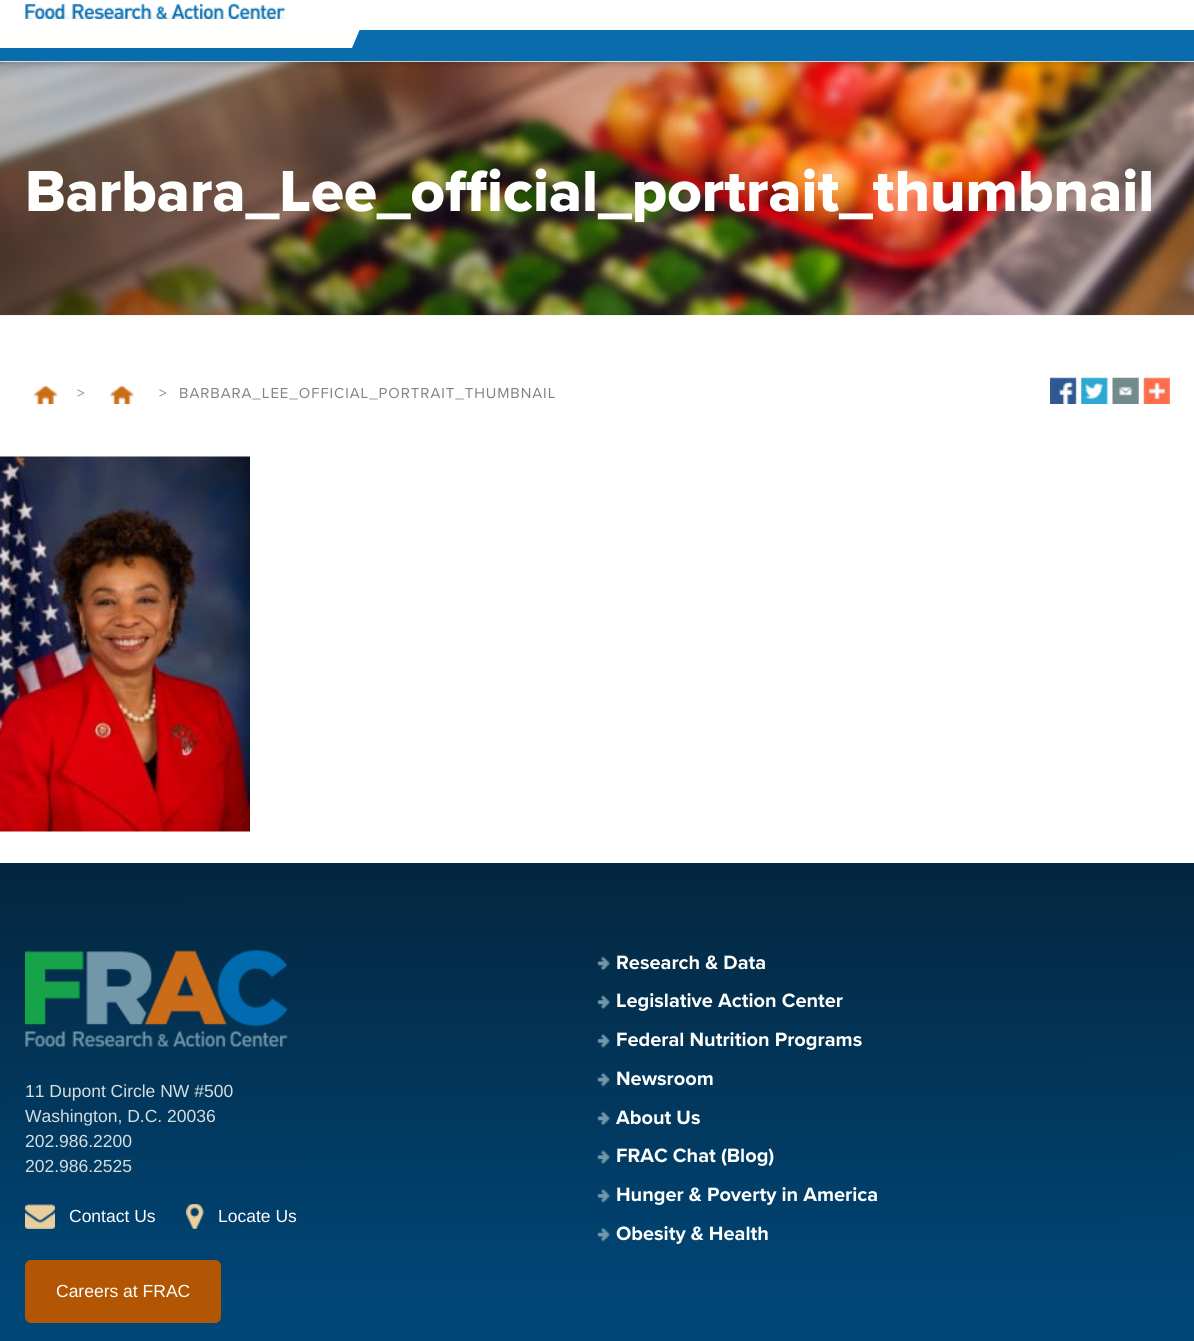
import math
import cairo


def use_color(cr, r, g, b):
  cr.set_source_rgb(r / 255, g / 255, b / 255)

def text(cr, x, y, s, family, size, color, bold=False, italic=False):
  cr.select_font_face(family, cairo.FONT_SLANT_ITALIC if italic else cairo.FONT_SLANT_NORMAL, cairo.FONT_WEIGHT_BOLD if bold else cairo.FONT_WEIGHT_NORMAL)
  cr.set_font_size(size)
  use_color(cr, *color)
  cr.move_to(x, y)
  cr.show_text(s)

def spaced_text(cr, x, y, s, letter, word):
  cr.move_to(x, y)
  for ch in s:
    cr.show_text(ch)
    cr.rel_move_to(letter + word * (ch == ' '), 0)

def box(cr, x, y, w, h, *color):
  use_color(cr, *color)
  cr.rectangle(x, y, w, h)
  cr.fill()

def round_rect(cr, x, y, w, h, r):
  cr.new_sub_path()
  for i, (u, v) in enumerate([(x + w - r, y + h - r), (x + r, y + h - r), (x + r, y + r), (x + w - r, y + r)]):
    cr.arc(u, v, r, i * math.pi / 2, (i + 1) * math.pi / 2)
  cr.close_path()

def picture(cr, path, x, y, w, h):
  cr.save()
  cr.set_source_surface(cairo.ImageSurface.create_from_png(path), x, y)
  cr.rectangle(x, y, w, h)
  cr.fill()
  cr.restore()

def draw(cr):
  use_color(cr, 255, 255, 255)
  cr.paint()
  picture(cr, "img_01.png", 25, 3, 260, 16)
  box(cr, 0, 30, 1194, 31, 8, 108, 173)
  use_color(cr, 255, 255, 254)
  cr.new_path()
  cr.move_to(-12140, 29)
  cr.line_to(360, 29)
  cr.line_to(352, 48)
  cr.line_to(-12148, 48)
  cr.close_path()
  cr.fill()
  picture(cr, "img_02.png", 0, 61, 1194, 255)
  picture(cr, "img_03.png", 33, 386, 25, 18)
  picture(cr, "img_04.png", 110, 386, 24, 18)
  picture(cr, "img_05.png", 1050, 377, 27, 27)
  picture(cr, "img_06.png", 1081, 377, 27, 27)
  picture(cr, "img_07.png", 1112, 377, 27, 27)
  picture(cr, "img_08.png", 1143, 377, 27, 27)
  picture(cr, "img_09.png", 0, 456, 250, 376)
  gradient = cairo.LinearGradient(597, 863, 598, 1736)
  gradient.add_color_stop_rgba(0, 0.016, 0.149, 0.243, 1)
  gradient.add_color_stop_rgba(0.5, 0, 0.275, 0.467, 1)
  gradient.add_color_stop_rgba(1, 0, 0.275, 0.467, 1)
  cr.set_source(gradient)
  cr.rectangle(0, 863, 1194, 478)
  cr.fill()
  picture(cr, "img_10.png", 25, 950, 263, 97)
  picture(cr, "img_11.png", 25, 1204, 30, 25)
  picture(cr, "img_12.png", 186, 1204, 18, 25)
  use_color(cr, 178, 86, 3)
  round_rect(cr, 25, 1260, 196, 63, 6)
  cr.fill()
  picture(cr, "img_13.png", 597, 956, 13, 15)
  picture(cr, "img_14.png", 597, 995, 13, 14)
  picture(cr, "img_15.png", 597, 1034, 13, 14)
  picture(cr, "img_16.png", 597, 1072, 13, 15)
  picture(cr, "img_17.png", 597, 1111, 13, 15)
  picture(cr, "img_18.png", 597, 1150, 13, 14)
  picture(cr, "img_19.png", 597, 1189, 13, 14)
  picture(cr, "img_20.png", 597, 1227, 13, 15)
  text(cr, 25, 211, "Barbara_Lee_official_portrait_thumbnail", "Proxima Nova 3", 60, (255, 255, 254))
  cr.select_font_face("Proxima Nova")
  cr.set_font_size(15)
  use_color(cr, 129, 129, 129)
  spaced_text(cr, 77, 398, ">", 0.95, 0)
  spaced_text(cr, 159, 398, ">", 0.95, 0)
  spaced_text(cr, 179, 398, "BARBARA_LEE_OFFICIAL_PORTRAIT_THUMBNAIL", 0.95, 0)
  text(cr, 25, 1097, "11 Dupont Circle NW #500", "Liberation Sans", 17.5, (214, 222, 223))
  text(cr, 25, 1122, "Washington, D.C. 20036", "Liberation Sans", 17.5, (214, 222, 223))
  text(cr, 25, 1147, "202.986.2200", "Liberation Sans", 17.5, (214, 222, 223))
  text(cr, 25, 1172, "202.986.2525", "Liberation Sans", 17.5, (214, 222, 223))
  text(cr, 69, 1222, "Contact Us", "Liberation Sans", 17.5, (255, 255, 254))
  text(cr, 218, 1222, "Locate Us", "Liberation Sans", 17.5, (255, 255, 254))
  text(cr, 56, 1297, "Careers at FRAC", "Liberation Sans", 17.5, (255, 255, 254))
  text(cr, 616, 969, "Research & Data", "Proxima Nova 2", 20, (255, 255, 254))
  text(cr, 616, 1007, "Legislative Action Center", "Proxima Nova 2", 20, (255, 255, 254))
  text(cr, 616, 1046, "Federal Nutrition Programs", "Proxima Nova 2", 20, (255, 255, 254))
  text(cr, 616, 1085, "Newsroom", "Proxima Nova 2", 20, (255, 255, 254))
  text(cr, 616, 1124, "About Us", "Proxima Nova 2", 20, (255, 255, 254))
  text(cr, 616, 1162, "FRAC Chat (Blog)", "Proxima Nova 2", 20, (255, 255, 254))
  text(cr, 616, 1201, "Hunger & Poverty in America", "Proxima Nova 2", 20, (255, 255, 254))
  text(cr, 616, 1240, "Obesity & Health", "Proxima Nova 2", 20, (255, 255, 254))


surface = cairo.ImageSurface(cairo.FORMAT_RGB24, 1194, 1341)
cr = cairo.Context(surface)
options = cairo.FontOptions()
options.set_hint_metrics(cairo.HINT_METRICS_OFF)
options.set_hint_style(cairo.HINT_STYLE_NONE)
cr.set_font_options(options)
cr.set_miter_limit(4)
draw(cr)
surface.write_to_png("out.png")
